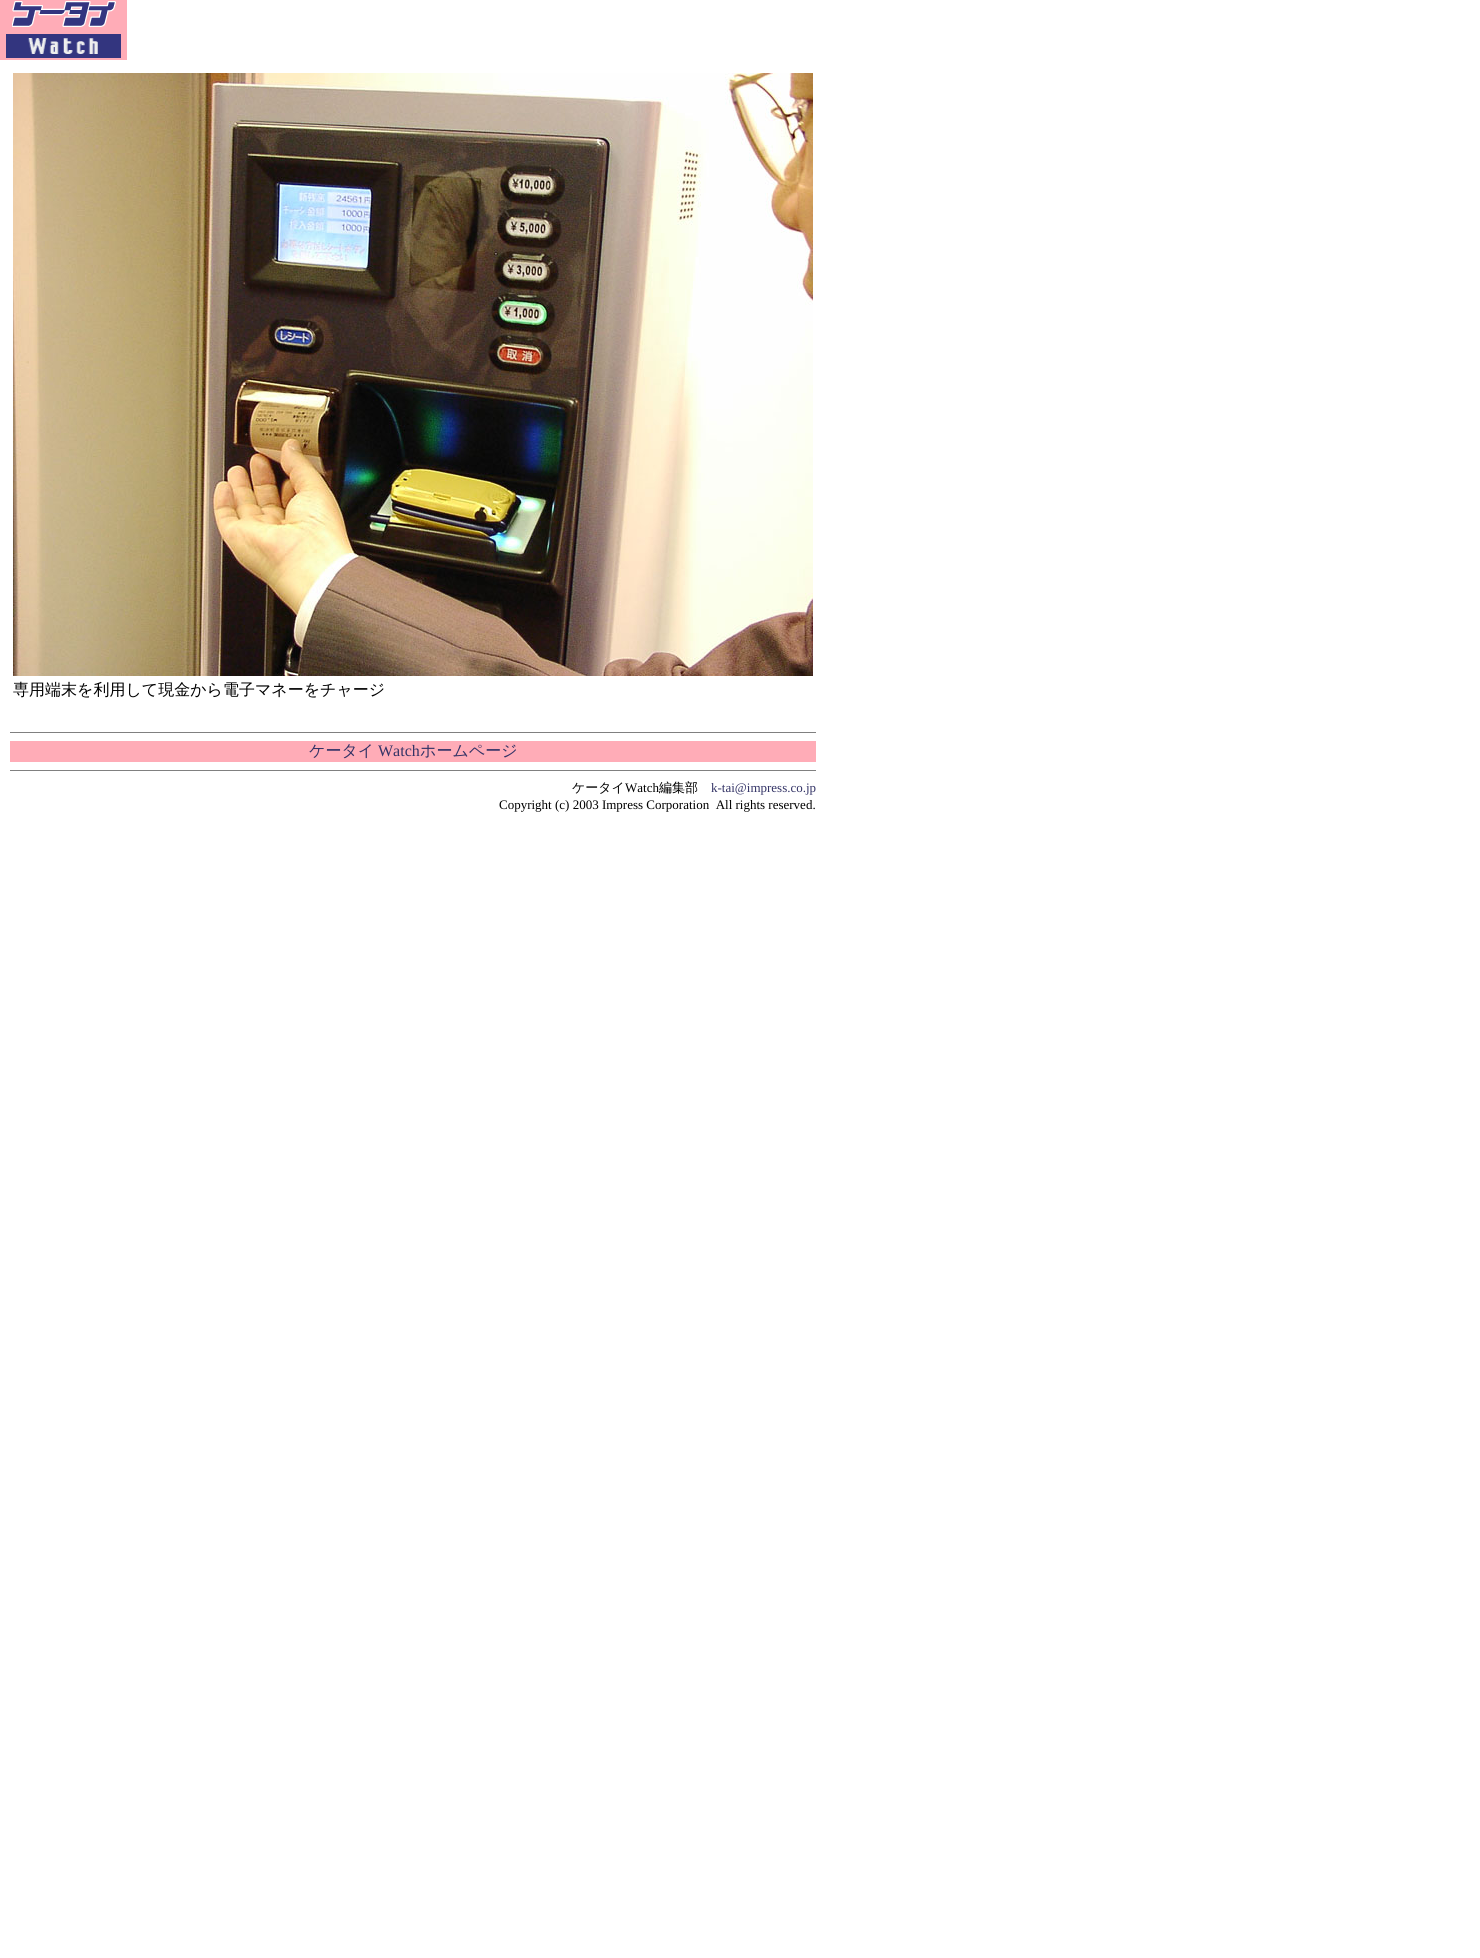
import math
import cairo


def use_color(cr, r, g, b):
  cr.set_source_rgb(r / 255, g / 255, b / 255)

def text(cr, x, y, s, family, size, color, bold=False, italic=False):
  cr.select_font_face(family, cairo.FONT_SLANT_ITALIC if italic else cairo.FONT_SLANT_NORMAL, cairo.FONT_WEIGHT_BOLD if bold else cairo.FONT_WEIGHT_NORMAL)
  cr.set_font_size(size)
  use_color(cr, *color)
  cr.move_to(x, y)
  cr.show_text(s)

def box(cr, x, y, w, h, *color):
  use_color(cr, *color)
  cr.rectangle(x, y, w, h)
  cr.fill()

def picture(cr, path, x, y, w, h):
  cr.save()
  cr.set_source_surface(cairo.ImageSurface.create_from_png(path), x, y)
  cr.rectangle(x, y, w, h)
  cr.fill()
  cr.restore()

def draw(cr):
  use_color(cr, 255, 255, 255)
  cr.paint()
  box(cr, 0, 0, 127, 60, 255, 172, 183)
  picture(cr, "img_01.png", 6, 1, 115, 57)
  picture(cr, "img_02.png", 13, 73, 800, 603)
  box(cr, 10, 732, 806, 1, 128, 128, 128)
  box(cr, 10, 741, 806, 21, 255, 172, 183)
  box(cr, 10, 770, 806, 1, 128, 128, 128)
  text(cr, 13, 695, "専用端末を利用して現金から電子マネーをチャージ", "WenQuanYi Zen Hei Medium", 16, (0, 0, 0))
  text(cr, 309, 756, "ケータイ", "WenQuanYi Zen Hei Medium", 16, (51, 51, 102))
  text(cr, 378, 756, "Watch", "Liberation Serif", 16, (51, 51, 102))
  text(cr, 420, 756, "ホームページ", "WenQuanYi Zen Hei Medium", 16, (51, 51, 102))
  text(cr, 572, 792, "ケータイ", "WenQuanYi Zen Hei Medium", 13, (0, 0, 0))
  text(cr, 625, 792, "Watch", "Liberation Serif", 13, (0, 0, 0))
  text(cr, 659, 792, "編集部", "WenQuanYi Zen Hei Medium", 13, (0, 0, 0))
  text(cr, 711, 792, "k-tai@impress.co.jp", "Liberation Serif", 13, (51, 51, 102))
  text(cr, 499, 809, "Copyright (c) 2003 Impress Corporation  All rights reserved.", "Liberation Serif", 13, (0, 0, 0))


surface = cairo.ImageSurface(cairo.FORMAT_RGB24, 1480, 1958)
cr = cairo.Context(surface)
options = cairo.FontOptions()
options.set_hint_metrics(cairo.HINT_METRICS_OFF)
options.set_hint_style(cairo.HINT_STYLE_NONE)
cr.set_font_options(options)
cr.set_miter_limit(4)
draw(cr)
surface.write_to_png("out.png")
